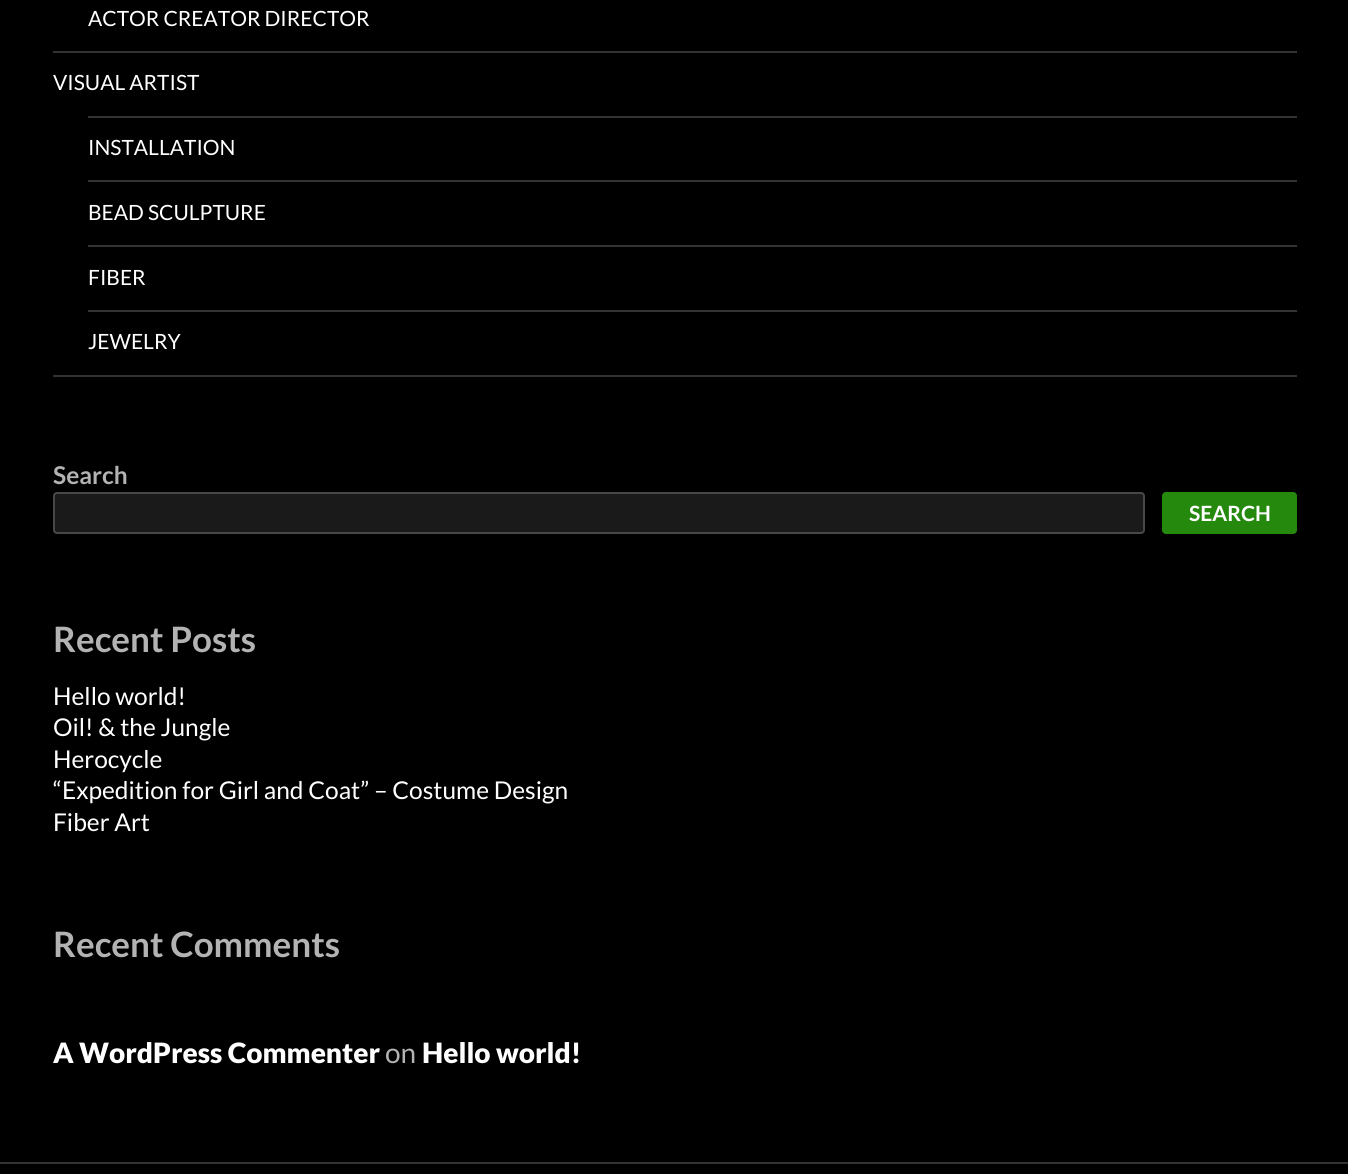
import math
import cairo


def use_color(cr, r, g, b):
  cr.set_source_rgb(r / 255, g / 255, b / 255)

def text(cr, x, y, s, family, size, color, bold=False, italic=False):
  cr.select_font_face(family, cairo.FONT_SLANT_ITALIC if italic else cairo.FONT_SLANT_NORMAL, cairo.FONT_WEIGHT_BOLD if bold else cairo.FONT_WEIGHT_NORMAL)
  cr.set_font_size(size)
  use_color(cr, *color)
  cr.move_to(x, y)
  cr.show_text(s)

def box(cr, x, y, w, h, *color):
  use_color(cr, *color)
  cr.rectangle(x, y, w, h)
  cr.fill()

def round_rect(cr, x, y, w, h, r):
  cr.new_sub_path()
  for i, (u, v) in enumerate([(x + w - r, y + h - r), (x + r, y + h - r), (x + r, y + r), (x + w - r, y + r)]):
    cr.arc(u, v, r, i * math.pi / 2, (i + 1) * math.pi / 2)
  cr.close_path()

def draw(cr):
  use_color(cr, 0, 0, 0)
  cr.paint()
  box(cr, 0, 1162, 1348, 2, 51, 51, 51)
  box(cr, 53, 375, 1244, 2, 51, 51, 51)
  box(cr, 53, 51, 1244, 2, 51, 51, 51)
  box(cr, 88, 116, 1209, 2, 51, 51, 51)
  box(cr, 88, 180, 1209, 2, 51, 51, 51)
  box(cr, 88, 245, 1209, 2, 51, 51, 51)
  box(cr, 88, 310, 1209, 2, 51, 51, 51)
  use_color(cr, 26, 26, 26)
  round_rect(cr, 53, 492, 1092, 42, 4)
  cr.fill()
  round_rect(cr, 54, 493, 1090, 40, 3)
  cr.set_source_rgba(1, 1, 1, 0.2)
  cr.stroke()
  use_color(cr, 36, 137, 13)
  round_rect(cr, 1162, 492, 135, 42, 4)
  cr.fill()
  text(cr, 88, 26, "ACTOR CREATOR DIRECTOR", "Lato", 21, (255, 255, 255))
  text(cr, 53, 90, "VISUAL ARTIST", "Lato", 21, (255, 255, 255))
  text(cr, 88, 155, "INSTALLATION", "Lato", 21, (255, 255, 255))
  text(cr, 88, 220, "BEAD SCULPTURE", "Lato", 21, (255, 255, 255))
  text(cr, 88, 285, "FIBER", "Lato", 21, (255, 255, 255))
  text(cr, 88, 349, "JEWELRY", "Lato", 21, (255, 255, 255))
  text(cr, 53, 484, "Search", "Lato", 24.5, (179, 179, 179), bold=True)
  text(cr, 1189, 521, "SEARCH", "Lato", 21, (255, 255, 255), bold=True)
  text(cr, 53, 652, "Recent Posts", "Lato", 35, (179, 179, 179), bold=True)
  text(cr, 53, 705, "Hello world!", "Lato", 24.5, (255, 255, 255))
  text(cr, 53, 736, "Oil! & the Jungle", "Lato", 24.5, (255, 255, 255))
  text(cr, 53, 768, "Herocycle", "Lato", 24.5, (255, 255, 255))
  text(cr, 53, 799, "“Expedition for Girl and Coat” – Costume Design", "Lato", 24.5, (255, 255, 255))
  text(cr, 53, 831, "Fiber Art", "Lato", 24.5, (255, 255, 255))
  text(cr, 53, 957, "Recent Comments", "Lato", 35, (179, 179, 179), bold=True)
  text(cr, 53, 1063, "A WordPress Commenter", "Lato Black", 28, (255, 255, 255))
  text(cr, 385, 1063, "on", "Lato", 28, (179, 179, 179))
  text(cr, 422, 1063, "Hello world!", "Lato Black", 28, (255, 255, 255))


surface = cairo.ImageSurface(cairo.FORMAT_RGB24, 1348, 1174)
cr = cairo.Context(surface)
options = cairo.FontOptions()
options.set_hint_metrics(cairo.HINT_METRICS_OFF)
options.set_hint_style(cairo.HINT_STYLE_NONE)
cr.set_font_options(options)
cr.set_miter_limit(4)
draw(cr)
surface.write_to_png("out.png")
